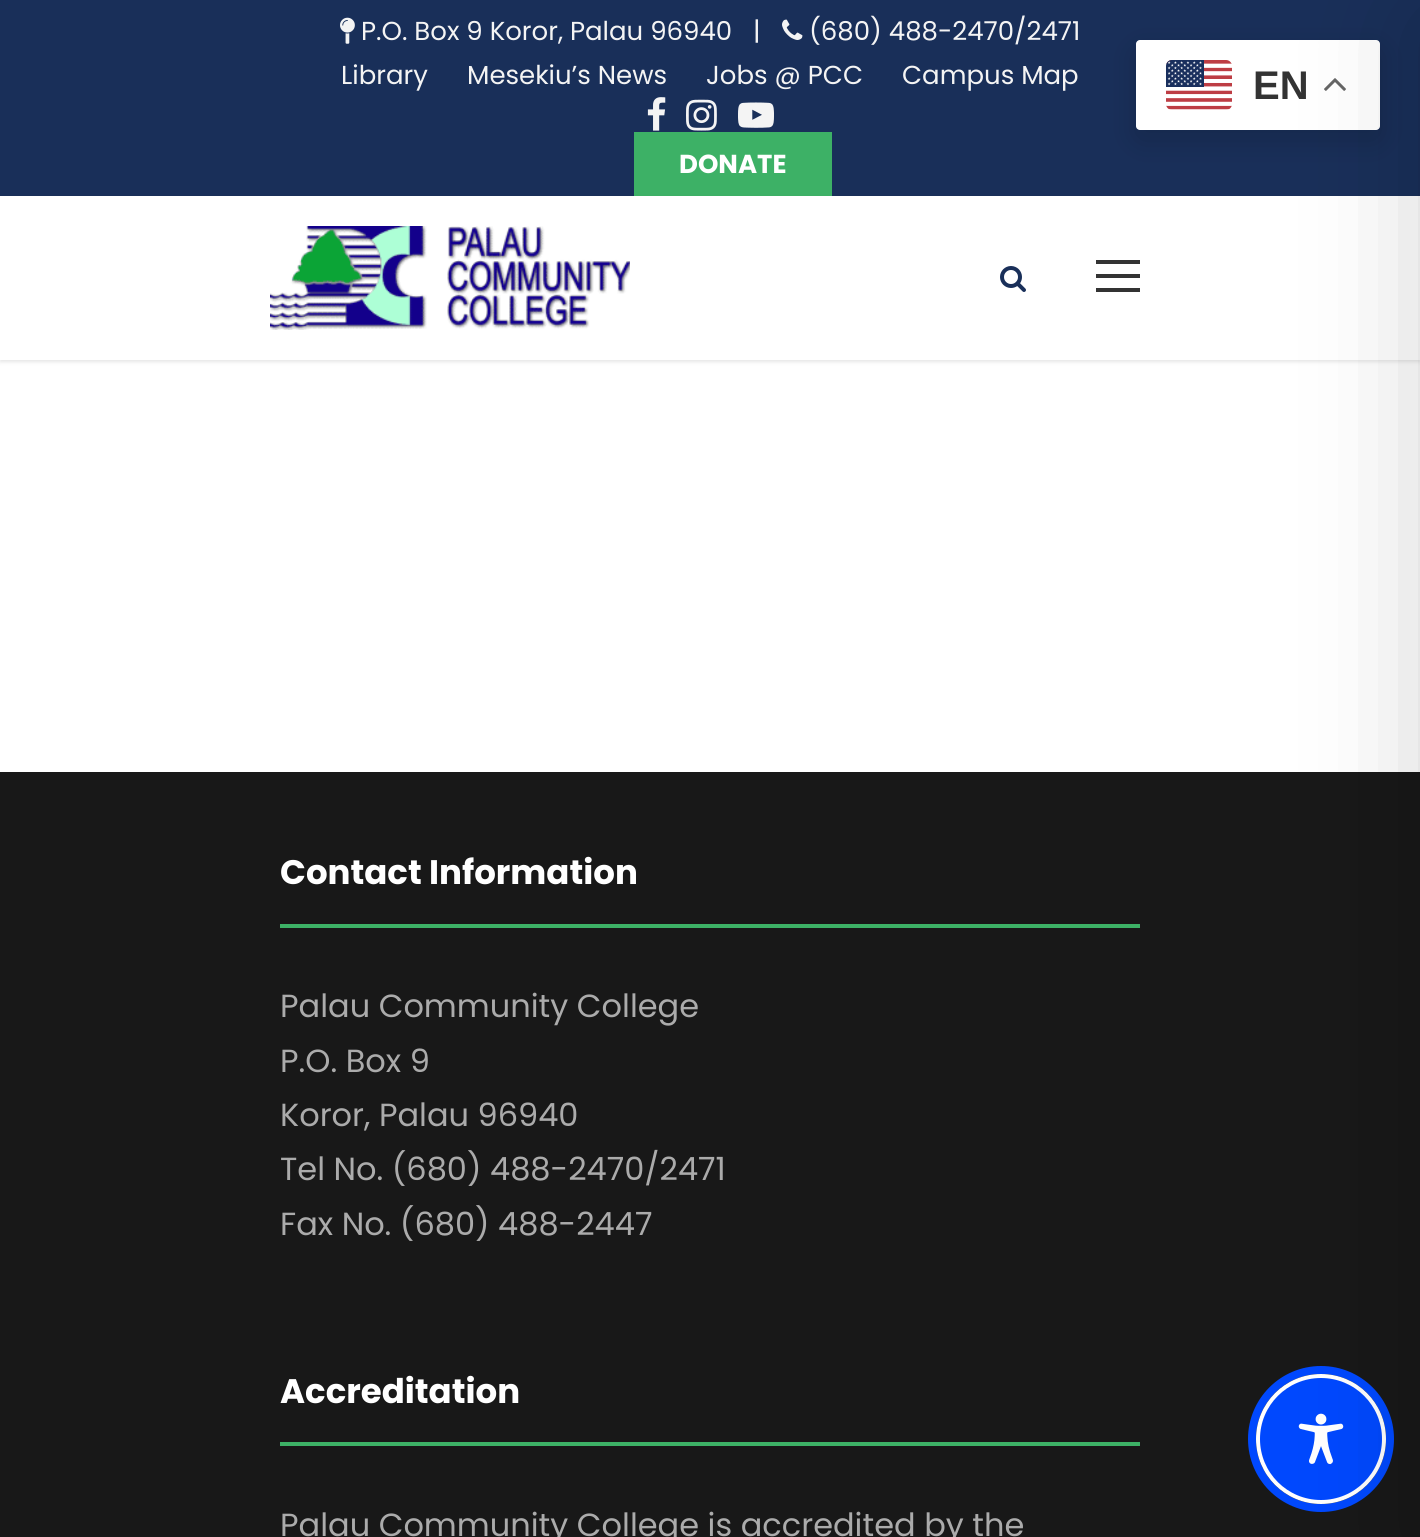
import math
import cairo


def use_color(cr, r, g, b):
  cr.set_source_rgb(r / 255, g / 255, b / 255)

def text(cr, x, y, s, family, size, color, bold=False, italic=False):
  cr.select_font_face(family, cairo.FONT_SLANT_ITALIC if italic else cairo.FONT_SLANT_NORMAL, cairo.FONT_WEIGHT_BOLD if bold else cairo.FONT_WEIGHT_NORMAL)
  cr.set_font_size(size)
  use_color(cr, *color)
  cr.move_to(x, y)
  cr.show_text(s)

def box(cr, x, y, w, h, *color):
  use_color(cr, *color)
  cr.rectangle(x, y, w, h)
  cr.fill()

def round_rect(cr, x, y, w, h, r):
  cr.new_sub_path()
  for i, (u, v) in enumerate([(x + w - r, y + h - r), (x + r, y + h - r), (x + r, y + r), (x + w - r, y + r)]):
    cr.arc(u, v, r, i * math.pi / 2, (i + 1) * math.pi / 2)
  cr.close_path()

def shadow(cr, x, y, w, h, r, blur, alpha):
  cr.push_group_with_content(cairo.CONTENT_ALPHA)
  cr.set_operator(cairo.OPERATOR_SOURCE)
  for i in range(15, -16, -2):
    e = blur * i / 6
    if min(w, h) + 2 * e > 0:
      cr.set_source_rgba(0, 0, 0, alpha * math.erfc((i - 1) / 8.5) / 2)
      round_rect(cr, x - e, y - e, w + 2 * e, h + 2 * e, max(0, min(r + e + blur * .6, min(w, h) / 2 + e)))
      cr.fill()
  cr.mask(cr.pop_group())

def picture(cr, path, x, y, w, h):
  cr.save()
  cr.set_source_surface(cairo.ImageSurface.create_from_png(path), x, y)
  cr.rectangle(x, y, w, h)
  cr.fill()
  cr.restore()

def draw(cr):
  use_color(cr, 255, 255, 255)
  cr.paint()
  box(cr, 0, 0, 1420, 196, 25, 47, 89)
  picture(cr, "img_01.png", 340, 17, 15, 27)
  picture(cr, "img_02.png", 782, 19, 21, 21)
  picture(cr, "img_03.png", 647, 97, 19, 34)
  picture(cr, "img_04.png", 686, 99, 31, 32)
  picture(cr, "img_05.png", 738, 102, 36, 26)
  box(cr, 634, 132, 198, 64, 61, 177, 102)
  use_color(cr, 0, 0, 0)
  shadow(cr, 0, 198, 1420, 164, 0, 2, 0.1)
  box(cr, 0, 196, 1420, 164, 255, 255, 255)
  picture(cr, "img_06.png", 270, 226, 360, 104)
  picture(cr, "img_07.png", 1000, 266, 26, 26)
  box(cr, 1096, 260, 44, 4, 51, 51, 51)
  box(cr, 1096, 274, 44, 4, 51, 51, 51)
  box(cr, 1096, 288, 44, 4, 51, 51, 51)
  use_color(cr, 0, 0, 0)
  shadow(cr, 1136, 50, 244, 90, 4, 15, 0.15)
  use_color(cr, 255, 255, 255)
  round_rect(cr, 1136, 40, 244, 90, 4)
  cr.fill()
  picture(cr, "img_09.png", 1324, 78, 22, 13)
  box(cr, 0, 772, 1420, 765, 24, 24, 24)
  cr.arc(1321, 1439, 69, 0, 2 * math.pi)
  use_color(cr, 0, 72, 254)
  cr.set_line_width(8)
  cr.stroke()
  cr.arc(1321, 1439, 63, 0, 2 * math.pi)
  cr.fill_preserve()
  use_color(cr, 255, 255, 255)
  cr.set_line_width(4)
  cr.stroke()
  picture(cr, "img_10.png", 1298, 1413, 46, 52)
  use_color(cr, 0, 0, 0)
  shadow(cr, 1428, 20, 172, 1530, 0, 60, 0.2)
  picture(cr, "img_08.png", 1166, 60, 66, 50)
  box(cr, 280, 924, 860, 4, 61, 177, 102)
  box(cr, 280, 1442, 860, 4, 61, 177, 102)
  text(cr, 361, 40, "P.O. Box 9 Koror, Palau 96940   |", "Poppins", 26, (244, 244, 244))
  text(cr, 809, 40, "(680) 488-2470/2471", "Poppins", 26, (244, 244, 244))
  text(cr, 341, 84, "Library", "Poppins", 26, (244, 244, 244))
  text(cr, 467, 84, "Mesekiu’s News", "Poppins", 26, (244, 244, 244))
  text(cr, 706, 84, "Jobs @ PCC", "Poppins", 26, (244, 244, 244))
  text(cr, 902, 84, "Campus Map", "Poppins", 26, (244, 244, 244))
  text(cr, 679, 173, "DONATE", "Poppins", 26, (255, 255, 255), bold=True)
  text(cr, 1253, 99, "EN", "Liberation Sans", 40, (51, 51, 51), bold=True)
  text(cr, 280, 884, "Contact Information", "Poppins", 34, (255, 255, 255), bold=True)
  text(cr, 280, 1017, "Palau Community College", "Poppins", 32, (171, 171, 171))
  text(cr, 280, 1072, "P.O. Box 9", "Poppins", 32, (171, 171, 171))
  text(cr, 280, 1126, "Koror, Palau 96940", "Poppins", 32, (171, 171, 171))
  text(cr, 280, 1180, "Tel No. (680) 488-2470/2471", "Poppins", 32, (171, 171, 171))
  text(cr, 280, 1235, "Fax No. (680) 488-2447", "Poppins", 32, (171, 171, 171))
  text(cr, 280, 1403, "Accreditation", "Poppins", 34, (255, 255, 255), bold=True)
  text(cr, 280, 1536, "Palau Community College is accredited by the", "Poppins", 32, (171, 171, 171))


surface = cairo.ImageSurface(cairo.FORMAT_RGB24, 1420, 1537)
cr = cairo.Context(surface)
options = cairo.FontOptions()
options.set_hint_metrics(cairo.HINT_METRICS_OFF)
options.set_hint_style(cairo.HINT_STYLE_NONE)
cr.set_font_options(options)
cr.set_miter_limit(4)
draw(cr)
surface.write_to_png("out.png")
